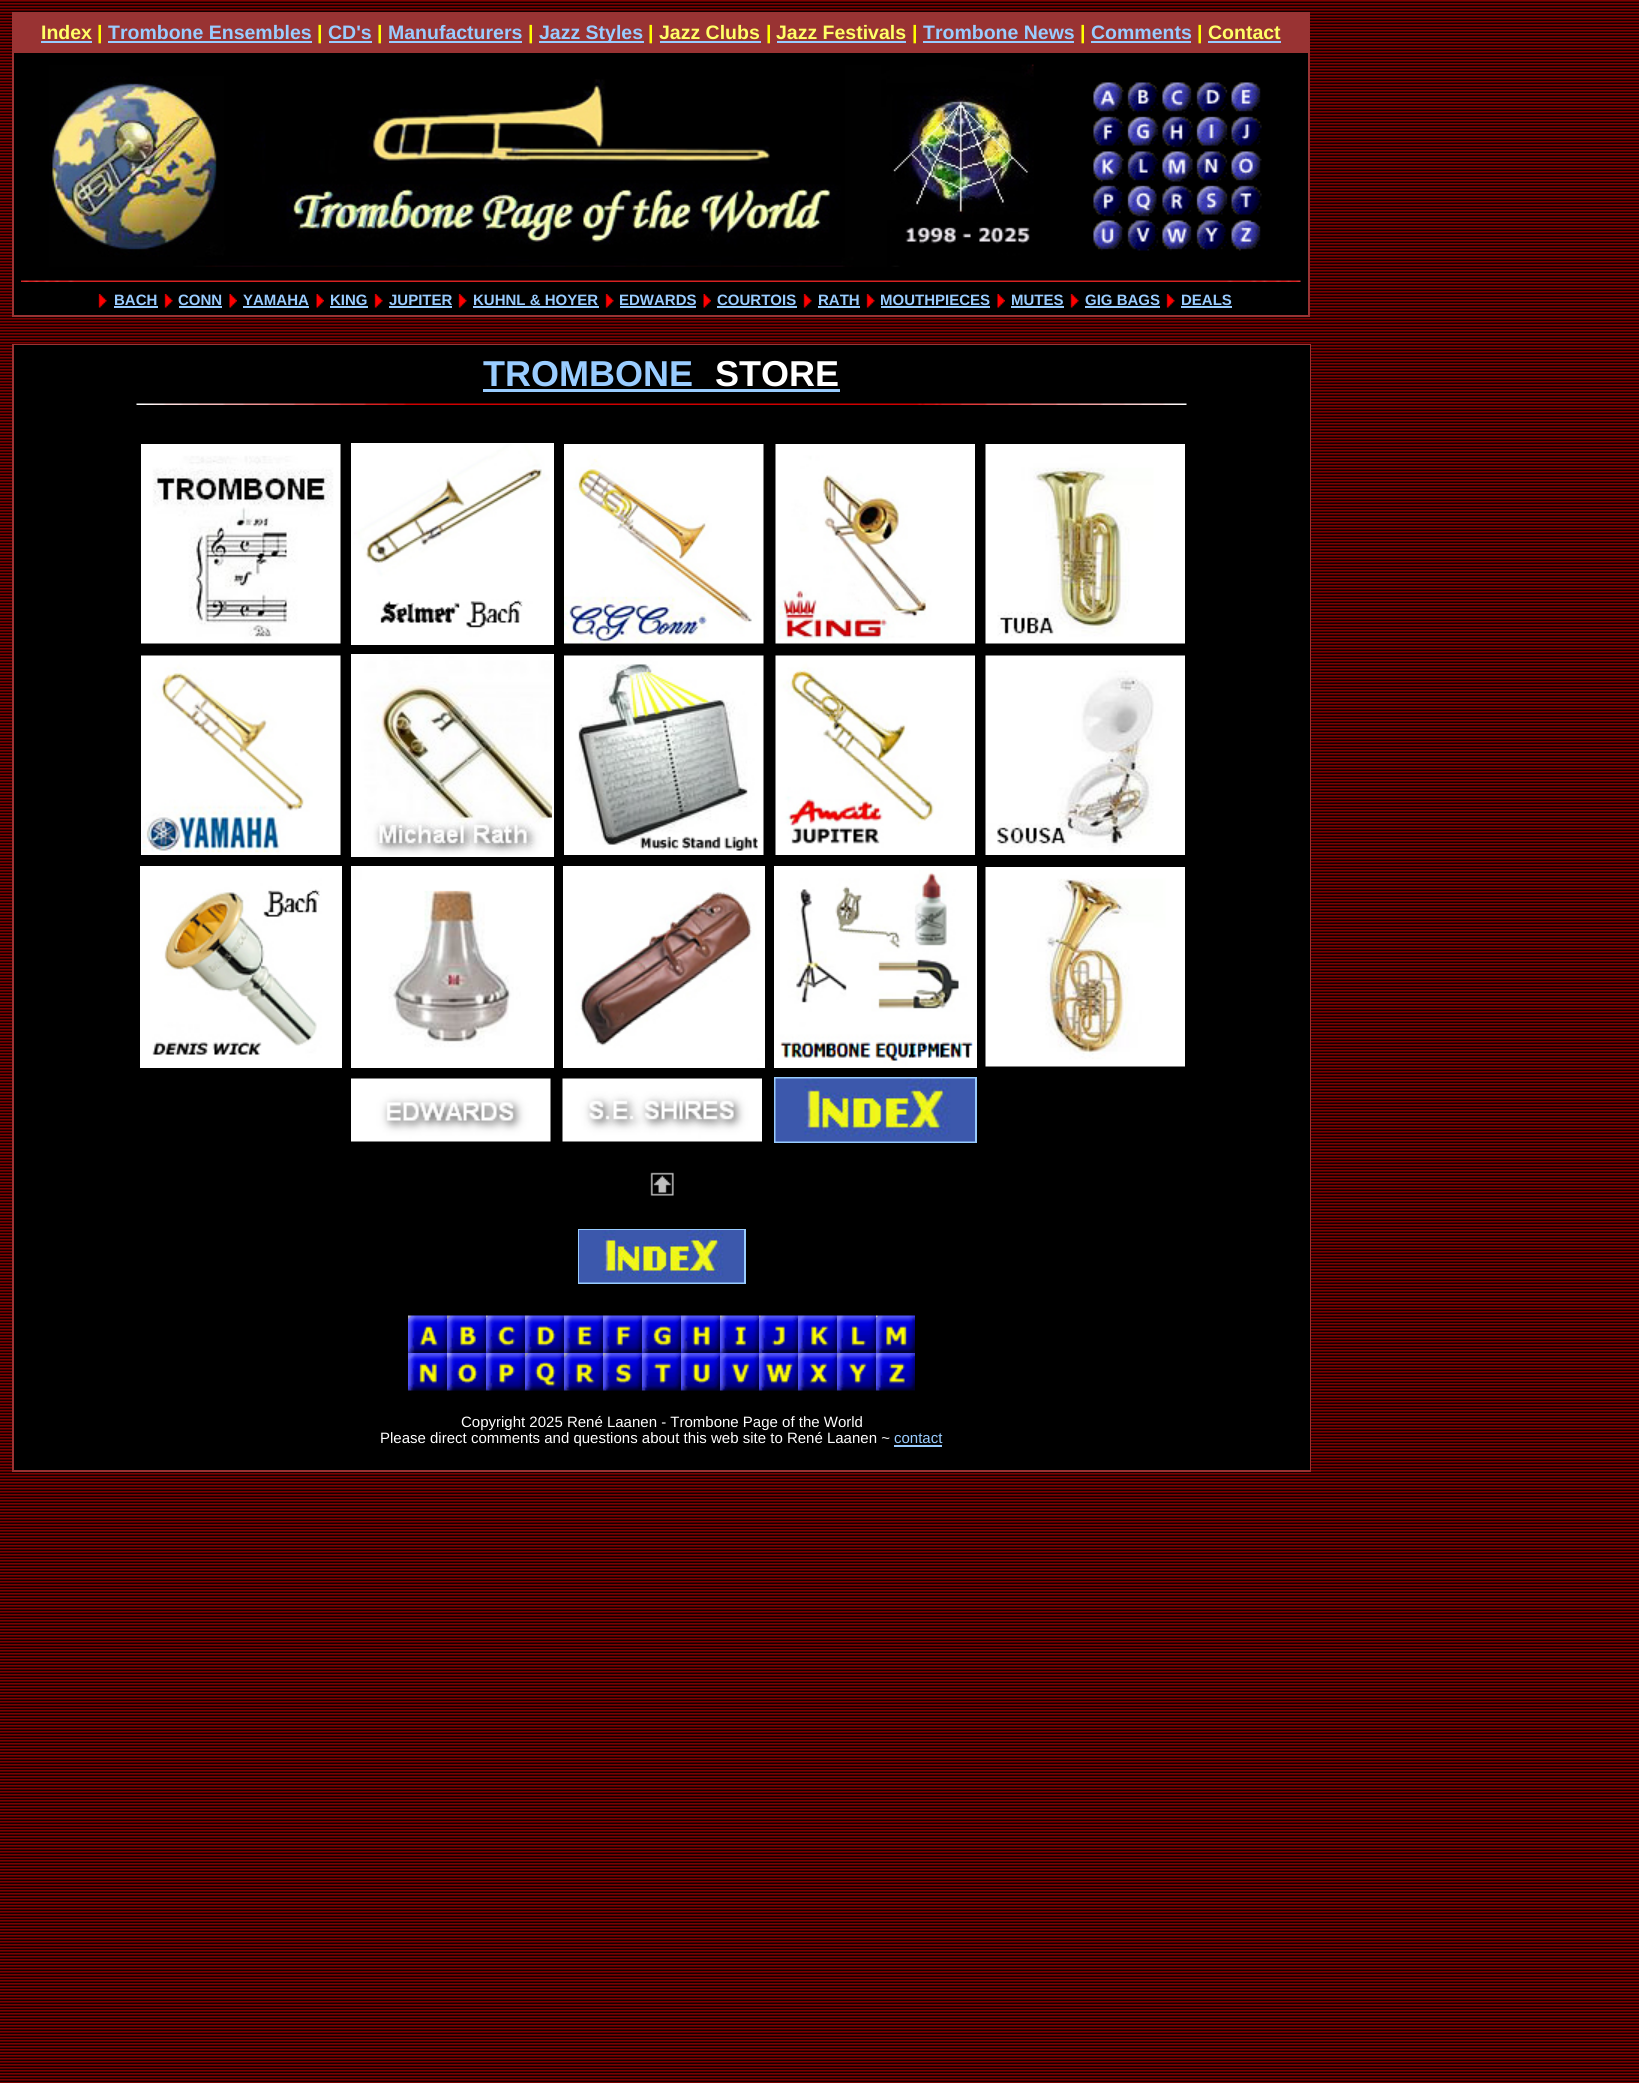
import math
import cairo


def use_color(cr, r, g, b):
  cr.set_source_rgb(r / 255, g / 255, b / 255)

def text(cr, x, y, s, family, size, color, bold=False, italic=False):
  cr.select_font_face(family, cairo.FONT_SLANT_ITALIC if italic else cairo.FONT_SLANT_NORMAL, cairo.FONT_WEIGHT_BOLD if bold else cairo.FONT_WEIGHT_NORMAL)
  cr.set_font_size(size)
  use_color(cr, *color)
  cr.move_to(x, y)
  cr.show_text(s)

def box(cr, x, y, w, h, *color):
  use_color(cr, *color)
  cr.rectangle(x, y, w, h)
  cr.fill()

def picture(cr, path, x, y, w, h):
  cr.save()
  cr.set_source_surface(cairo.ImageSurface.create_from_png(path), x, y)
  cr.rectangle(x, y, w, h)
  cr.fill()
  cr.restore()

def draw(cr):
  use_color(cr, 255, 255, 255)
  cr.paint()
  picture(cr, "img_01.png", 0, 0, 1639, 2083)
  box(cr, 12, 12, 1298, 305, 153, 51, 51)
  box(cr, 41, 41, 51, 2, 153, 204, 255)
  box(cr, 108, 41, 204, 2, 153, 204, 255)
  box(cr, 329, 41, 43, 2, 153, 204, 255)
  box(cr, 389, 41, 133, 2, 153, 204, 255)
  box(cr, 539, 41, 105, 2, 153, 204, 255)
  box(cr, 660, 41, 101, 2, 153, 204, 255)
  box(cr, 777, 41, 129, 2, 153, 204, 255)
  box(cr, 923, 41, 151, 2, 153, 204, 255)
  box(cr, 1091, 41, 100, 2, 153, 204, 255)
  box(cr, 1208, 41, 73, 2, 153, 204, 255)
  box(cr, 14, 53, 1294, 262, 0, 0, 0)
  picture(cr, "img_02.png", 49, 64, 985, 203)
  picture(cr, "img_03.png", 1093, 82, 169, 169)
  picture(cr, "img_04.png", 21, 280, 1280, 2)
  picture(cr, "img_05.png", 98, 294, 9, 14)
  box(cr, 114, 306, 44, 2, 153, 204, 255)
  picture(cr, "img_05.png", 164, 294, 9, 14)
  box(cr, 179, 306, 43, 2, 153, 204, 255)
  picture(cr, "img_06.png", 229, 294, 8, 14)
  box(cr, 243, 306, 66, 2, 153, 204, 255)
  picture(cr, "img_07.png", 316, 294, 8, 14)
  box(cr, 330, 306, 38, 2, 153, 204, 255)
  picture(cr, "img_08.png", 374, 294, 9, 14)
  box(cr, 389, 306, 63, 2, 153, 204, 255)
  picture(cr, "img_05.png", 458, 294, 9, 14)
  box(cr, 473, 306, 126, 2, 153, 204, 255)
  picture(cr, "img_08.png", 605, 294, 9, 14)
  box(cr, 620, 306, 76, 2, 153, 204, 255)
  picture(cr, "img_07.png", 703, 294, 8, 14)
  box(cr, 717, 306, 80, 2, 153, 204, 255)
  picture(cr, "img_05.png", 803, 294, 9, 14)
  box(cr, 818, 306, 42, 2, 153, 204, 255)
  picture(cr, "img_05.png", 866, 294, 9, 14)
  box(cr, 881, 306, 109, 2, 153, 204, 255)
  picture(cr, "img_06.png", 997, 294, 8, 14)
  box(cr, 1011, 306, 53, 2, 153, 204, 255)
  picture(cr, "img_05.png", 1070, 294, 9, 14)
  box(cr, 1085, 306, 75, 2, 153, 204, 255)
  picture(cr, "img_08.png", 1166, 294, 9, 14)
  box(cr, 1181, 306, 51, 2, 153, 204, 255)
  box(cr, 12, 344, 1299, 1128, 153, 51, 51)
  box(cr, 14, 345, 1296, 1125, 0, 0, 0)
  box(cr, 483, 389, 357, 3, 153, 204, 255)
  picture(cr, "img_09.png", 136, 403, 1051, 2)
  picture(cr, "img_10.png", 141, 444, 200, 200)
  cr.rectangle(352, 444, 201, 200)
  use_color(cr, 255, 255, 255)
  cr.stroke()
  picture(cr, "img_11.png", 353, 444, 199, 199)
  picture(cr, "img_12.png", 564, 444, 200, 200)
  picture(cr, "img_13.png", 775, 444, 200, 200)
  picture(cr, "img_14.png", 985, 444, 200, 200)
  picture(cr, "img_15.png", 141, 655, 200, 200)
  cr.rectangle(352, 655, 201, 201)
  cr.stroke()
  picture(cr, "img_16.png", 353, 656, 199, 199)
  picture(cr, "img_17.png", 564, 655, 200, 200)
  picture(cr, "img_18.png", 775, 655, 200, 200)
  picture(cr, "img_19.png", 985, 655, 200, 200)
  cr.rectangle(141, 867, 200, 200)
  cr.stroke()
  picture(cr, "img_20.png", 142, 868, 198, 198)
  cr.rectangle(352, 867, 201, 200)
  cr.stroke()
  picture(cr, "img_21.png", 353, 868, 199, 198)
  cr.rectangle(564, 867, 200, 200)
  cr.stroke()
  picture(cr, "img_22.png", 565, 868, 198, 198)
  cr.rectangle(775, 867, 201, 200)
  cr.stroke()
  picture(cr, "img_23.png", 775, 868, 200, 198)
  picture(cr, "img_24.png", 985, 867, 200, 200)
  picture(cr, "img_25.png", 351, 1078, 200, 64)
  picture(cr, "img_26.png", 562, 1078, 200, 64)
  cr.rectangle(775, 1078, 201, 64)
  use_color(cr, 153, 204, 255)
  cr.stroke()
  picture(cr, "img_27.png", 775, 1078, 200, 64)
  picture(cr, "img_28.png", 650, 1172, 24, 24)
  cr.rectangle(579, 1230, 166, 53)
  cr.stroke()
  picture(cr, "img_29.png", 579, 1230, 165, 53)
  picture(cr, "img_30.png", 408, 1315, 39, 38)
  picture(cr, "img_31.png", 447, 1315, 39, 38)
  picture(cr, "img_32.png", 486, 1315, 39, 38)
  picture(cr, "img_33.png", 525, 1315, 39, 38)
  picture(cr, "img_34.png", 564, 1315, 39, 38)
  picture(cr, "img_35.png", 603, 1315, 39, 38)
  picture(cr, "img_36.png", 642, 1315, 39, 38)
  picture(cr, "img_37.png", 681, 1315, 39, 38)
  picture(cr, "img_38.png", 720, 1315, 39, 38)
  picture(cr, "img_39.png", 759, 1315, 39, 38)
  picture(cr, "img_40.png", 798, 1315, 39, 38)
  picture(cr, "img_41.png", 837, 1315, 39, 38)
  picture(cr, "img_42.png", 876, 1315, 39, 38)
  picture(cr, "img_43.png", 408, 1353, 39, 38)
  picture(cr, "img_44.png", 447, 1353, 39, 38)
  picture(cr, "img_45.png", 486, 1353, 39, 38)
  picture(cr, "img_46.png", 525, 1353, 39, 38)
  picture(cr, "img_47.png", 564, 1353, 39, 38)
  picture(cr, "img_48.png", 603, 1353, 39, 38)
  picture(cr, "img_49.png", 642, 1353, 39, 38)
  picture(cr, "img_50.png", 681, 1353, 39, 38)
  picture(cr, "img_51.png", 720, 1353, 39, 38)
  picture(cr, "img_52.png", 759, 1353, 39, 38)
  picture(cr, "img_53.png", 798, 1353, 39, 38)
  picture(cr, "img_54.png", 837, 1353, 39, 38)
  picture(cr, "img_55.png", 876, 1353, 39, 38)
  box(cr, 894, 1445, 48, 2, 153, 204, 255)
  text(cr, 41, 39, "Index", "Liberation Sans", 19.5, (255, 255, 102), bold=True)
  text(cr, 97, 39, "|", "Liberation Sans", 19.5, (255, 255, 0), bold=True)
  text(cr, 108, 39, "Trombone Ensembles", "Liberation Sans", 19.5, (153, 204, 255), bold=True)
  text(cr, 317, 39, "|", "Liberation Sans", 19.5, (255, 255, 0), bold=True)
  text(cr, 328, 39, "CD's", "Liberation Sans", 19.5, (153, 204, 255), bold=True)
  text(cr, 377, 39, "|", "Liberation Sans", 19.5, (255, 255, 0), bold=True)
  text(cr, 388, 39, "Manufacturers", "Liberation Sans", 19.5, (153, 204, 255), bold=True)
  text(cr, 528, 39, "|", "Liberation Sans", 19.5, (255, 255, 0), bold=True)
  text(cr, 539, 39, "Jazz Styles", "Liberation Sans", 19.5, (153, 204, 255), bold=True)
  text(cr, 648, 39, "|", "Liberation Sans", 19.5, (255, 255, 0), bold=True)
  text(cr, 659, 39, "Jazz Clubs", "Liberation Sans", 19.5, (255, 255, 102), bold=True)
  text(cr, 766, 39, "|", "Liberation Sans", 19.5, (255, 255, 0), bold=True)
  text(cr, 776, 39, "Jazz Festivals", "Liberation Sans", 19.5, (255, 255, 102), bold=True)
  text(cr, 912, 39, "|", "Liberation Sans", 19.5, (255, 255, 0), bold=True)
  text(cr, 923, 39, "Trombone News", "Liberation Sans", 19.5, (153, 204, 255), bold=True)
  text(cr, 1080, 39, "|", "Liberation Sans", 19.5, (255, 255, 0), bold=True)
  text(cr, 1091, 39, "Comments", "Liberation Sans", 19.5, (153, 204, 255), bold=True)
  text(cr, 1197, 39, "|", "Liberation Sans", 19.5, (255, 255, 0), bold=True)
  text(cr, 1208, 39, "Contact", "Liberation Sans", 19.5, (255, 255, 102), bold=True)
  text(cr, 114, 305, "BACH", "Liberation Sans", 15, (153, 204, 255), bold=True)
  text(cr, 178, 305, "CONN", "Liberation Sans", 15, (153, 204, 255), bold=True)
  text(cr, 243, 305, "YAMAHA", "Liberation Sans", 15, (153, 204, 255), bold=True)
  text(cr, 330, 305, "KING", "Liberation Sans", 15, (153, 204, 255), bold=True)
  text(cr, 389, 305, "JUPITER", "Liberation Sans", 15, (153, 204, 255), bold=True)
  text(cr, 473, 305, "KUHNL & HOYER", "Liberation Sans", 15, (153, 204, 255), bold=True)
  text(cr, 619, 305, "EDWARDS", "Liberation Sans", 15, (153, 204, 255), bold=True)
  text(cr, 717, 305, "COURTOIS", "Liberation Sans", 15, (153, 204, 255), bold=True)
  text(cr, 818, 305, "RATH", "Liberation Sans", 15, (153, 204, 255), bold=True)
  text(cr, 880, 305, "MOUTHPIECES", "Liberation Sans", 15, (153, 204, 255), bold=True)
  text(cr, 1011, 305, "MUTES", "Liberation Sans", 15, (153, 204, 255), bold=True)
  text(cr, 1085, 305, "GIG BAGS", "Liberation Sans", 15, (153, 204, 255), bold=True)
  text(cr, 1181, 305, "DEALS", "Liberation Sans", 15, (153, 204, 255), bold=True)
  text(cr, 483, 386, "TROMBONE", "Liberation Sans", 36, (153, 204, 255), bold=True)
  text(cr, 715, 386, "STORE", "Liberation Sans", 36, (255, 255, 255), bold=True)
  text(cr, 461, 1427, "Copyright 2025 René Laanen - Trombone Page of the World", "Liberation Sans", 15, (255, 255, 255))
  text(cr, 380, 1443, "Please direct comments and questions about this web site to René Laanen ~", "Liberation Sans", 15, (255, 255, 255))
  text(cr, 894, 1443, "contact", "Liberation Sans", 15, (153, 204, 255))


surface = cairo.ImageSurface(cairo.FORMAT_RGB24, 1639, 2083)
cr = cairo.Context(surface)
options = cairo.FontOptions()
options.set_hint_metrics(cairo.HINT_METRICS_OFF)
options.set_hint_style(cairo.HINT_STYLE_NONE)
cr.set_font_options(options)
cr.set_miter_limit(4)
draw(cr)
surface.write_to_png("out.png")
